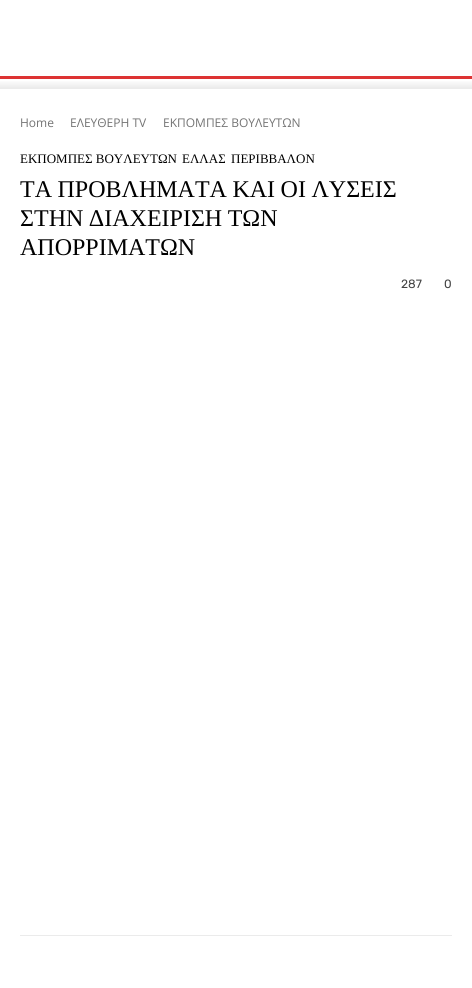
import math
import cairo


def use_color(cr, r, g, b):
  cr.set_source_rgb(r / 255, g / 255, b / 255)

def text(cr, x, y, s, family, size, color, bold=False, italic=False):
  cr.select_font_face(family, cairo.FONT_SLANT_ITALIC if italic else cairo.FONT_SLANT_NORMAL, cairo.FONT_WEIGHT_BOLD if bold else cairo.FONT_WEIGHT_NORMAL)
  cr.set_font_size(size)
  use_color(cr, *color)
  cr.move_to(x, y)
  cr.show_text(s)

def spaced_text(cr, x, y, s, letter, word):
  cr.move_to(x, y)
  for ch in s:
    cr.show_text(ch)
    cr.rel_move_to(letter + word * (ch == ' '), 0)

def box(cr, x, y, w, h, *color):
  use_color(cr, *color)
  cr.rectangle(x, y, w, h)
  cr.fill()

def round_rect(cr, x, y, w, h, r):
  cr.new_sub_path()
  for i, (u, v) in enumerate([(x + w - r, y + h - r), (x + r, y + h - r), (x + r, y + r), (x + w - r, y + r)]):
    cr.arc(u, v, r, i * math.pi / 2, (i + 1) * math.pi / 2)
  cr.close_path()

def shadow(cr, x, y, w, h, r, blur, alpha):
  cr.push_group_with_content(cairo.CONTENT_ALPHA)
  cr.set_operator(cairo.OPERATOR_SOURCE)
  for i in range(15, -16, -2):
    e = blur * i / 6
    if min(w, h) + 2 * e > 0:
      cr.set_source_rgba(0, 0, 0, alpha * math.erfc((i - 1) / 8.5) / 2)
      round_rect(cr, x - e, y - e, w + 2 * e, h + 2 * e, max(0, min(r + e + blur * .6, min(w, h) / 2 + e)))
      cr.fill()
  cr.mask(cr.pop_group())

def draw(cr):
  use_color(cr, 255, 255, 255)
  cr.paint()
  cr.save()
  cr.rectangle(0, 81, 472, 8)
  cr.clip()
  use_color(cr, 0, 0, 0)
  shadow(cr, -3, 86, 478, 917, 0, 5, 0.12)
  cr.restore()
  box(cr, 0, 76, 472, 3, 221, 51, 51)
  box(cr, 20, 935, 432, 1, 235, 235, 235)
  text(cr, 20, 127, "Home", "Open Sans", 12, (116, 116, 116))
  text(cr, 70, 127, "ΕΛΕΥΘΕΡΗ ΤV", "Open Sans", 12, (116, 116, 116))
  text(cr, 163, 127, "ΕΚΠΟΜΠΕΣ ΒΟΥΛΕΥΤΩΝ", "Open Sans", 12, (116, 116, 116))
  text(cr, 20, 163, "ΕΚΠΟΜΠΕΣ ΒΟΥΛΕΥΤΩΝ", "Liberation Serif", 13, (0, 0, 0))
  text(cr, 182, 163, "ΕΛΛΑΣ", "Liberation Serif", 13, (0, 0, 0))
  text(cr, 231, 163, "ΠΕΡΙΒΒΑΛΟΝ", "Liberation Serif", 13, (0, 0, 0))
  cr.set_font_size(24)
  spaced_text(cr, 20, 197, "ΤΑ ΠΡΟΒΛΗΜΑΤΑ ΚΑΙ ΟΙ ΛΥΣΕΙΣ", 0, -0.5)
  spaced_text(cr, 20, 226, "ΣΤΗΝ ΔΙΑΧΕΙΡΙΣΗ ΤΩΝ", 0, -0.5)
  text(cr, 20, 255, "ΑΠΟΡΡΙΜΑΤΩΝ", "Liberation Serif", 24, (0, 0, 0))
  text(cr, 401, 288, "287", "Rubik", 12, (68, 68, 68))
  text(cr, 444, 288, "0", "Rubik", 12, (68, 68, 68))


surface = cairo.ImageSurface(cairo.FORMAT_RGB24, 472, 988)
cr = cairo.Context(surface)
options = cairo.FontOptions()
options.set_hint_metrics(cairo.HINT_METRICS_OFF)
options.set_hint_style(cairo.HINT_STYLE_NONE)
cr.set_font_options(options)
cr.set_miter_limit(4)
draw(cr)
surface.write_to_png("out.png")
